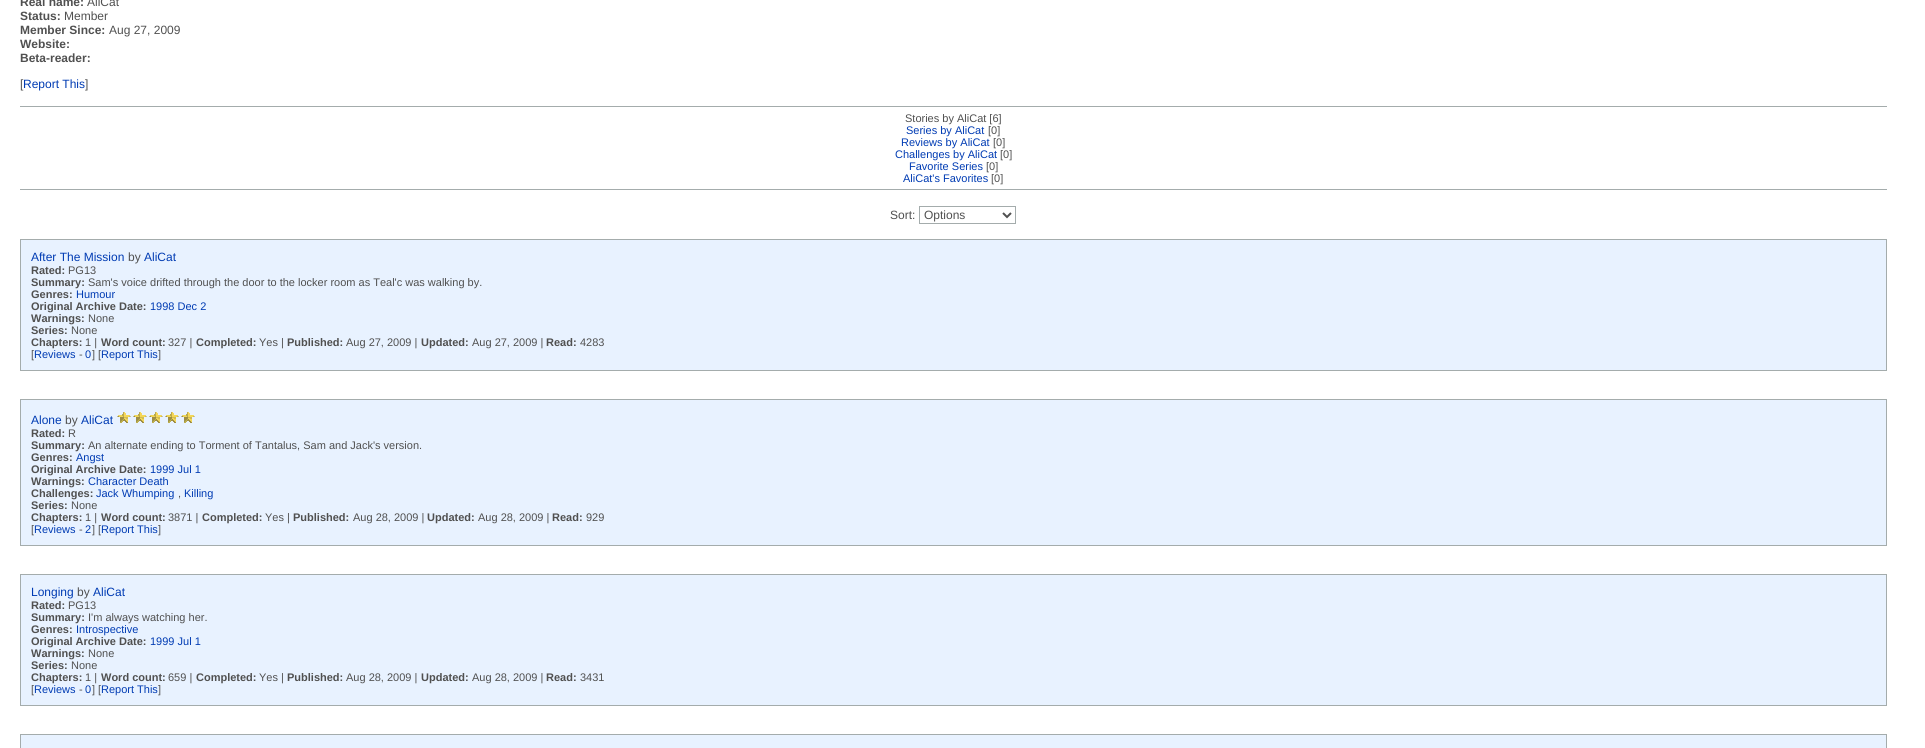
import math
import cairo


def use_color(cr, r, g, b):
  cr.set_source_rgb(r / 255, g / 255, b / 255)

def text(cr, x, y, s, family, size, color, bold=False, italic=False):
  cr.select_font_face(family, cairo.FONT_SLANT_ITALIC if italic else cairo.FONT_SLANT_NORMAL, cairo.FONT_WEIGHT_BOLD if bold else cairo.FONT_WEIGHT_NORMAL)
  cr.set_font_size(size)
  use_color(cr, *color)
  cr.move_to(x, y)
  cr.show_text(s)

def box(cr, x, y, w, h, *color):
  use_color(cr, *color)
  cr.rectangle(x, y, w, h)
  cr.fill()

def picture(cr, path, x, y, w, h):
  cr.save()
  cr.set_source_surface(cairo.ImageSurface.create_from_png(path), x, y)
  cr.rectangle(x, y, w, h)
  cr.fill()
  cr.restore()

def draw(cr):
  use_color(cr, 255, 255, 255)
  cr.paint()
  box(cr, 20, 106, 1867, 1, 164, 172, 172)
  box(cr, 20, 189, 1867, 1, 164, 172, 172)
  cr.rectangle(919.5, 206.5, 96, 17)
  cr.set_line_width(1)
  cr.stroke()
  cr.new_path()
  cr.move_to(1003, 213)
  cr.line_to(1007, 217)
  cr.line_to(1011, 213)
  use_color(cr, 80, 80, 80)
  cr.set_line_width(2)
  cr.stroke()
  use_color(cr, 232, 242, 255)
  cr.rectangle(20.5, 239.5, 1866, 131)
  cr.fill_preserve()
  use_color(cr, 164, 172, 172)
  cr.set_line_width(1)
  cr.stroke()
  use_color(cr, 232, 242, 255)
  cr.rectangle(20.5, 399.5, 1866, 146)
  cr.fill_preserve()
  use_color(cr, 164, 172, 172)
  cr.stroke()
  picture(cr, "img_01.png", 117, 412, 14, 11)
  picture(cr, "img_01.png", 133, 412, 14, 11)
  picture(cr, "img_01.png", 149, 412, 14, 11)
  picture(cr, "img_01.png", 165, 412, 14, 11)
  picture(cr, "img_01.png", 181, 412, 14, 11)
  use_color(cr, 232, 242, 255)
  cr.rectangle(20.5, 574.5, 1866, 131)
  cr.fill_preserve()
  use_color(cr, 164, 172, 172)
  cr.stroke()
  use_color(cr, 232, 242, 255)
  cr.rectangle(20.5, 734.5, 1866, 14)
  cr.fill_preserve()
  use_color(cr, 164, 172, 172)
  cr.stroke()
  text(cr, 20, 6, "Real name:", "Liberation Sans", 12, (80, 80, 80), bold=True)
  text(cr, 87, 6, "AliCat", "Liberation Sans", 12, (80, 80, 80))
  text(cr, 20, 20, "Status:", "Liberation Sans", 12, (80, 80, 80), bold=True)
  text(cr, 64, 20, "Member", "Liberation Sans", 12, (80, 80, 80))
  text(cr, 20, 34, "Member Since:", "Liberation Sans", 12, (80, 80, 80), bold=True)
  text(cr, 109, 34, "Aug 27, 2009", "Liberation Sans", 12, (80, 80, 80))
  text(cr, 20, 48, "Website:", "Liberation Sans", 12, (80, 80, 80), bold=True)
  text(cr, 20, 62, "Beta-reader:", "Liberation Sans", 12, (80, 80, 80), bold=True)
  text(cr, 20, 88, "[", "Liberation Sans", 12, (80, 80, 80))
  text(cr, 23, 88, "Report This", "Liberation Sans", 12, (0, 59, 179))
  text(cr, 85, 88, "]", "Liberation Sans", 12, (80, 80, 80))
  text(cr, 905, 122, "Stories by AliCat [6]", "Liberation Sans", 11, (80, 80, 80))
  text(cr, 906, 134, "Series by AliCat", "Liberation Sans", 11, (0, 59, 179))
  text(cr, 988, 134, "[0]", "Liberation Sans", 11, (80, 80, 80))
  text(cr, 901, 146, "Reviews by AliCat", "Liberation Sans", 11, (0, 59, 179))
  text(cr, 993, 146, "[0]", "Liberation Sans", 11, (80, 80, 80))
  text(cr, 895, 158, "Challenges by AliCat", "Liberation Sans", 11, (0, 59, 179))
  text(cr, 1000, 158, "[0]", "Liberation Sans", 11, (80, 80, 80))
  text(cr, 909, 170, "Favorite Series", "Liberation Sans", 11, (0, 59, 179))
  text(cr, 986, 170, "[0]", "Liberation Sans", 11, (80, 80, 80))
  text(cr, 903, 182, "AliCat's Favorites", "Liberation Sans", 11, (0, 59, 179))
  text(cr, 991, 182, "[0]", "Liberation Sans", 11, (80, 80, 80))
  text(cr, 890, 219, "Sort:", "Liberation Sans", 12, (80, 80, 80))
  text(cr, 924, 219, "Options", "Liberation Sans", 12, (80, 80, 80))
  text(cr, 31, 261, "After The Mission", "Liberation Sans", 12, (0, 59, 179))
  text(cr, 128, 261, "by", "Liberation Sans", 12, (80, 80, 80))
  text(cr, 144, 261, "AliCat", "Liberation Sans", 12, (0, 59, 179))
  text(cr, 31, 274, "Rated:", "Liberation Sans", 11, (80, 80, 80), bold=True)
  text(cr, 68, 274, "PG13", "Liberation Sans", 11, (80, 80, 80))
  text(cr, 31, 286, "Summary:", "Liberation Sans", 11, (80, 80, 80), bold=True)
  text(cr, 88, 286, "Sam's voice drifted through the door to the locker room as Teal'c was walking by.", "Liberation Sans", 11, (80, 80, 80))
  text(cr, 31, 298, "Genres:", "Liberation Sans", 11, (80, 80, 80), bold=True)
  text(cr, 76, 298, "Humour", "Liberation Sans", 11, (0, 59, 179))
  text(cr, 31, 310, "Original Archive Date:", "Liberation Sans", 11, (80, 80, 80), bold=True)
  text(cr, 150, 310, "1998 Dec 2", "Liberation Sans", 11, (0, 59, 179))
  text(cr, 31, 322, "Warnings:", "Liberation Sans", 11, (80, 80, 80), bold=True)
  text(cr, 88, 322, "None", "Liberation Sans", 11, (80, 80, 80))
  text(cr, 31, 334, "Series:", "Liberation Sans", 11, (80, 80, 80), bold=True)
  text(cr, 71, 334, "None", "Liberation Sans", 11, (80, 80, 80))
  text(cr, 31, 346, "Chapters:", "Liberation Sans", 11, (80, 80, 80), bold=True)
  text(cr, 85, 346, "1 |", "Liberation Sans", 11, (80, 80, 80))
  text(cr, 101, 346, "Word count:", "Liberation Sans", 11, (80, 80, 80), bold=True)
  text(cr, 168, 346, "327 |", "Liberation Sans", 11, (80, 80, 80))
  text(cr, 196, 346, "Completed:", "Liberation Sans", 11, (80, 80, 80), bold=True)
  text(cr, 259, 346, "Yes |", "Liberation Sans", 11, (80, 80, 80))
  text(cr, 287, 346, "Published:", "Liberation Sans", 11, (80, 80, 80), bold=True)
  text(cr, 346, 346, "Aug 27, 2009 |", "Liberation Sans", 11, (80, 80, 80))
  text(cr, 421, 346, "Updated:", "Liberation Sans", 11, (80, 80, 80), bold=True)
  text(cr, 472, 346, "Aug 27, 2009 |", "Liberation Sans", 11, (80, 80, 80))
  text(cr, 546, 346, "Read:", "Liberation Sans", 11, (80, 80, 80), bold=True)
  text(cr, 580, 346, "4283", "Liberation Sans", 11, (80, 80, 80))
  text(cr, 31, 358, "[", "Liberation Sans", 11, (80, 80, 80))
  text(cr, 34, 358, "Reviews", "Liberation Sans", 11, (0, 59, 179))
  text(cr, 79, 358, "-", "Liberation Sans", 11, (80, 80, 80))
  text(cr, 85, 358, "0", "Liberation Sans", 11, (0, 59, 179))
  text(cr, 92, 358, "] [", "Liberation Sans", 11, (80, 80, 80))
  text(cr, 101, 358, "Report This", "Liberation Sans", 11, (0, 59, 179))
  text(cr, 158, 358, "]", "Liberation Sans", 11, (80, 80, 80))
  text(cr, 31, 424, "Alone", "Liberation Sans", 12, (0, 59, 179))
  text(cr, 65, 424, "by", "Liberation Sans", 12, (80, 80, 80))
  text(cr, 81, 424, "AliCat", "Liberation Sans", 12, (0, 59, 179))
  text(cr, 31, 437, "Rated:", "Liberation Sans", 11, (80, 80, 80), bold=True)
  text(cr, 68, 437, "R", "Liberation Sans", 11, (80, 80, 80))
  text(cr, 31, 449, "Summary:", "Liberation Sans", 11, (80, 80, 80), bold=True)
  text(cr, 88, 449, "An alternate ending to Torment of Tantalus, Sam and Jack's version.", "Liberation Sans", 11, (80, 80, 80))
  text(cr, 31, 461, "Genres:", "Liberation Sans", 11, (80, 80, 80), bold=True)
  text(cr, 76, 461, "Angst", "Liberation Sans", 11, (0, 59, 179))
  text(cr, 31, 473, "Original Archive Date:", "Liberation Sans", 11, (80, 80, 80), bold=True)
  text(cr, 150, 473, "1999 Jul 1", "Liberation Sans", 11, (0, 59, 179))
  text(cr, 31, 485, "Warnings:", "Liberation Sans", 11, (80, 80, 80), bold=True)
  text(cr, 88, 485, "Character Death", "Liberation Sans", 11, (0, 59, 179))
  text(cr, 31, 497, "Challenges:", "Liberation Sans", 11, (80, 80, 80), bold=True)
  text(cr, 96, 497, "Jack Whumping", "Liberation Sans", 11, (0, 59, 179))
  text(cr, 178, 497, ",", "Liberation Sans", 11, (80, 80, 80))
  text(cr, 184, 497, "Killing", "Liberation Sans", 11, (0, 59, 179))
  text(cr, 31, 509, "Series:", "Liberation Sans", 11, (80, 80, 80), bold=True)
  text(cr, 71, 509, "None", "Liberation Sans", 11, (80, 80, 80))
  text(cr, 31, 521, "Chapters:", "Liberation Sans", 11, (80, 80, 80), bold=True)
  text(cr, 85, 521, "1 |", "Liberation Sans", 11, (80, 80, 80))
  text(cr, 101, 521, "Word count:", "Liberation Sans", 11, (80, 80, 80), bold=True)
  text(cr, 168, 521, "3871 |", "Liberation Sans", 11, (80, 80, 80))
  text(cr, 202, 521, "Completed:", "Liberation Sans", 11, (80, 80, 80), bold=True)
  text(cr, 265, 521, "Yes |", "Liberation Sans", 11, (80, 80, 80))
  text(cr, 293, 521, "Published:", "Liberation Sans", 11, (80, 80, 80), bold=True)
  text(cr, 353, 521, "Aug 28, 2009 |", "Liberation Sans", 11, (80, 80, 80))
  text(cr, 427, 521, "Updated:", "Liberation Sans", 11, (80, 80, 80), bold=True)
  text(cr, 478, 521, "Aug 28, 2009 |", "Liberation Sans", 11, (80, 80, 80))
  text(cr, 552, 521, "Read:", "Liberation Sans", 11, (80, 80, 80), bold=True)
  text(cr, 586, 521, "929", "Liberation Sans", 11, (80, 80, 80))
  text(cr, 31, 533, "[", "Liberation Sans", 11, (80, 80, 80))
  text(cr, 34, 533, "Reviews", "Liberation Sans", 11, (0, 59, 179))
  text(cr, 79, 533, "-", "Liberation Sans", 11, (80, 80, 80))
  text(cr, 85, 533, "2", "Liberation Sans", 11, (0, 59, 179))
  text(cr, 92, 533, "] [", "Liberation Sans", 11, (80, 80, 80))
  text(cr, 101, 533, "Report This", "Liberation Sans", 11, (0, 59, 179))
  text(cr, 158, 533, "]", "Liberation Sans", 11, (80, 80, 80))
  text(cr, 31, 596, "Longing", "Liberation Sans", 12, (0, 59, 179))
  text(cr, 77, 596, "by", "Liberation Sans", 12, (80, 80, 80))
  text(cr, 93, 596, "AliCat", "Liberation Sans", 12, (0, 59, 179))
  text(cr, 31, 609, "Rated:", "Liberation Sans", 11, (80, 80, 80), bold=True)
  text(cr, 68, 609, "PG13", "Liberation Sans", 11, (80, 80, 80))
  text(cr, 31, 621, "Summary:", "Liberation Sans", 11, (80, 80, 80), bold=True)
  text(cr, 88, 621, "I'm always watching her.", "Liberation Sans", 11, (80, 80, 80))
  text(cr, 31, 633, "Genres:", "Liberation Sans", 11, (80, 80, 80), bold=True)
  text(cr, 76, 633, "Introspective", "Liberation Sans", 11, (0, 59, 179))
  text(cr, 31, 645, "Original Archive Date:", "Liberation Sans", 11, (80, 80, 80), bold=True)
  text(cr, 150, 645, "1999 Jul 1", "Liberation Sans", 11, (0, 59, 179))
  text(cr, 31, 657, "Warnings:", "Liberation Sans", 11, (80, 80, 80), bold=True)
  text(cr, 88, 657, "None", "Liberation Sans", 11, (80, 80, 80))
  text(cr, 31, 669, "Series:", "Liberation Sans", 11, (80, 80, 80), bold=True)
  text(cr, 71, 669, "None", "Liberation Sans", 11, (80, 80, 80))
  text(cr, 31, 681, "Chapters:", "Liberation Sans", 11, (80, 80, 80), bold=True)
  text(cr, 85, 681, "1 |", "Liberation Sans", 11, (80, 80, 80))
  text(cr, 101, 681, "Word count:", "Liberation Sans", 11, (80, 80, 80), bold=True)
  text(cr, 168, 681, "659 |", "Liberation Sans", 11, (80, 80, 80))
  text(cr, 196, 681, "Completed:", "Liberation Sans", 11, (80, 80, 80), bold=True)
  text(cr, 259, 681, "Yes |", "Liberation Sans", 11, (80, 80, 80))
  text(cr, 287, 681, "Published:", "Liberation Sans", 11, (80, 80, 80), bold=True)
  text(cr, 346, 681, "Aug 28, 2009 |", "Liberation Sans", 11, (80, 80, 80))
  text(cr, 421, 681, "Updated:", "Liberation Sans", 11, (80, 80, 80), bold=True)
  text(cr, 472, 681, "Aug 28, 2009 |", "Liberation Sans", 11, (80, 80, 80))
  text(cr, 546, 681, "Read:", "Liberation Sans", 11, (80, 80, 80), bold=True)
  text(cr, 580, 681, "3431", "Liberation Sans", 11, (80, 80, 80))
  text(cr, 31, 693, "[", "Liberation Sans", 11, (80, 80, 80))
  text(cr, 34, 693, "Reviews", "Liberation Sans", 11, (0, 59, 179))
  text(cr, 79, 693, "-", "Liberation Sans", 11, (80, 80, 80))
  text(cr, 85, 693, "0", "Liberation Sans", 11, (0, 59, 179))
  text(cr, 92, 693, "] [", "Liberation Sans", 11, (80, 80, 80))
  text(cr, 101, 693, "Report This", "Liberation Sans", 11, (0, 59, 179))
  text(cr, 158, 693, "]", "Liberation Sans", 11, (80, 80, 80))


surface = cairo.ImageSurface(cairo.FORMAT_RGB24, 1925, 748)
cr = cairo.Context(surface)
options = cairo.FontOptions()
options.set_hint_metrics(cairo.HINT_METRICS_OFF)
options.set_hint_style(cairo.HINT_STYLE_NONE)
cr.set_font_options(options)
cr.set_miter_limit(4)
draw(cr)
surface.write_to_png("out.png")
